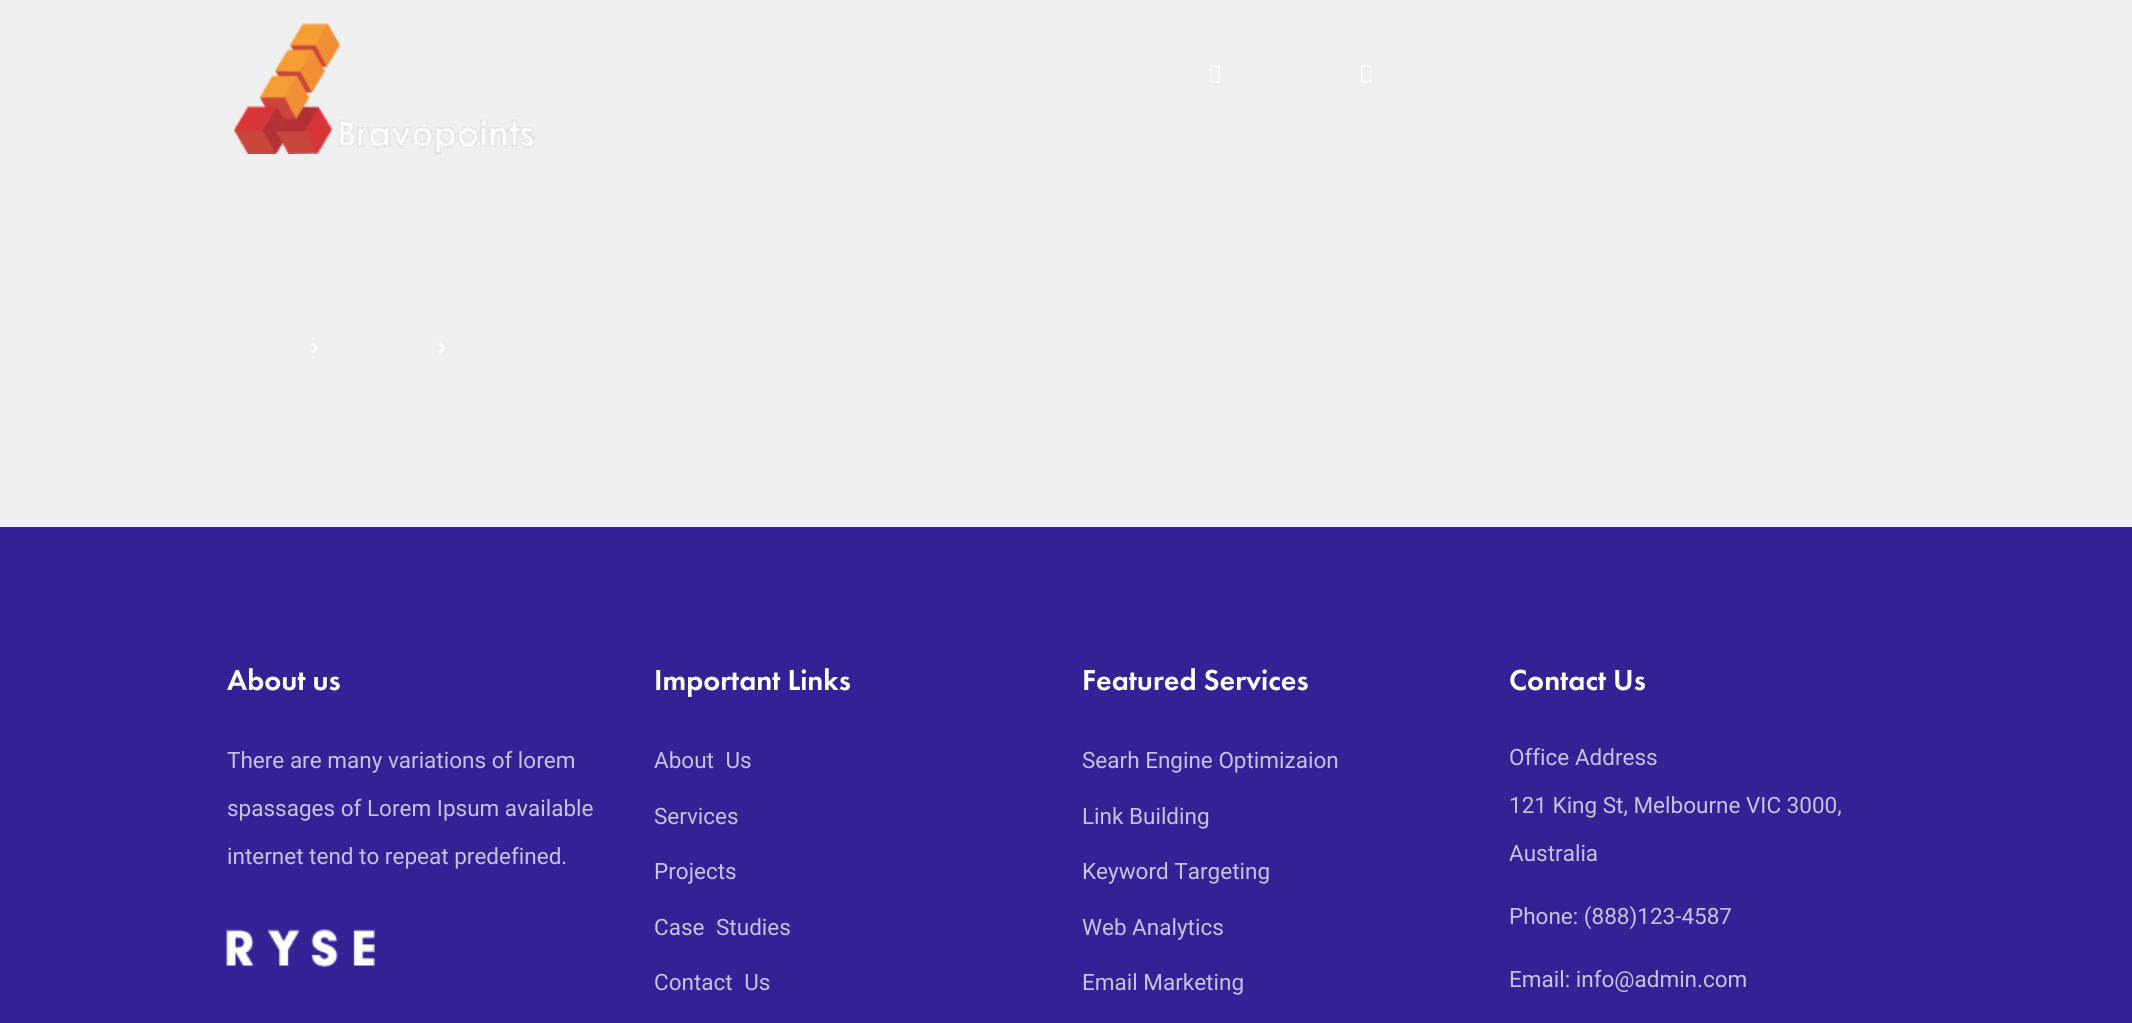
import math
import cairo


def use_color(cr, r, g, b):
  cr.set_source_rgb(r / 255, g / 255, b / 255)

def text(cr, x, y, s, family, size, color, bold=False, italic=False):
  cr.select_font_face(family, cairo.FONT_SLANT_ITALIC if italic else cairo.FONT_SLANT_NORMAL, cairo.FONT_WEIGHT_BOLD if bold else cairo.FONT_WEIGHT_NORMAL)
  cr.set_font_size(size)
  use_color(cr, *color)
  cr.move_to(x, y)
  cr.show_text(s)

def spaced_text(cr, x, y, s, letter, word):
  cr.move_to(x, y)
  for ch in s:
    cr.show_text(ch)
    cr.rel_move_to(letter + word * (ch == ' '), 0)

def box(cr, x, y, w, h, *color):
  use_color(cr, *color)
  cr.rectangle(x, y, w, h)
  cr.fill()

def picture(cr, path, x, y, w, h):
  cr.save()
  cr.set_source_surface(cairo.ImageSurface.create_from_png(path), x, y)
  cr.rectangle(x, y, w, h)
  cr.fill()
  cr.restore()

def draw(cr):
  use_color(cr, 51, 34, 149)
  cr.paint()
  box(cr, 0, 0, 2132, 527, 239, 239, 239)
  picture(cr, "img_01.png", 311, 342, 7, 12)
  picture(cr, "img_02.png", 439, 343, 7, 11)
  picture(cr, "img_03.png", 234, 23, 300, 131)
  picture(cr, "img_04.png", 1210, 65, 10, 18)
  picture(cr, "img_05.png", 1361, 65, 10, 18)
  picture(cr, "img_06.png", 226, 929, 149, 38)
  text(cr, 227, 690, "About us", "Futura PT Medium", 30, (255, 255, 255))
  text(cr, 227, 768, "There are many variations of lorem", "Roboto", 22.5, (199, 194, 228))
  text(cr, 227, 816, "spassages of Lorem Ipsum available", "Roboto", 22.5, (199, 194, 228))
  text(cr, 227, 864, "internet tend to repeat predefined.", "Roboto", 22.5, (199, 194, 228))
  text(cr, 654, 690, "Important Links", "Futura PT Medium", 30, (255, 255, 255))
  cr.select_font_face("Roboto")
  cr.set_font_size(22.5)
  use_color(cr, 199, 194, 228)
  spaced_text(cr, 654, 768, "About Us", 0, 6)
  text(cr, 654, 824, "Services", "Roboto", 22.5, (199, 194, 228))
  text(cr, 654, 879, "Projects", "Roboto", 22.5, (199, 194, 228))
  spaced_text(cr, 654, 935, "Case Studies", 0, 6)
  spaced_text(cr, 654, 990, "Contact Us", 0, 6)
  text(cr, 1082, 690, "Featured Services", "Futura PT Medium", 30, (255, 255, 255))
  text(cr, 1082, 768, "Searh Engine Optimizaion", "Roboto", 22.5, (199, 194, 228))
  text(cr, 1082, 824, "Link Building", "Roboto", 22.5, (199, 194, 228))
  text(cr, 1082, 879, "Keyword Targeting", "Roboto", 22.5, (199, 194, 228))
  text(cr, 1082, 935, "Web Analytics", "Roboto", 22.5, (199, 194, 228))
  text(cr, 1082, 990, "Email Marketing", "Roboto", 22.5, (199, 194, 228))
  text(cr, 1509, 690, "Contact Us", "Futura PT Medium", 30, (255, 255, 255))
  text(cr, 1509, 765, "Office Address", "Roboto", 22.5, (199, 194, 228))
  text(cr, 1509, 813, "121 King St, Melbourne VIC 3000,", "Roboto", 22.5, (199, 194, 228))
  text(cr, 1509, 861, "Australia", "Roboto", 22.5, (199, 194, 228))
  text(cr, 1509, 924, "Phone: (888)123-4587", "Roboto", 22.5, (199, 194, 228))
  text(cr, 1509, 987, "Email: info@admin.com", "Roboto", 22.5, (199, 194, 228))


surface = cairo.ImageSurface(cairo.FORMAT_RGB24, 2132, 1023)
cr = cairo.Context(surface)
options = cairo.FontOptions()
options.set_hint_metrics(cairo.HINT_METRICS_OFF)
options.set_hint_style(cairo.HINT_STYLE_NONE)
cr.set_font_options(options)
cr.set_miter_limit(4)
draw(cr)
surface.write_to_png("out.png")
